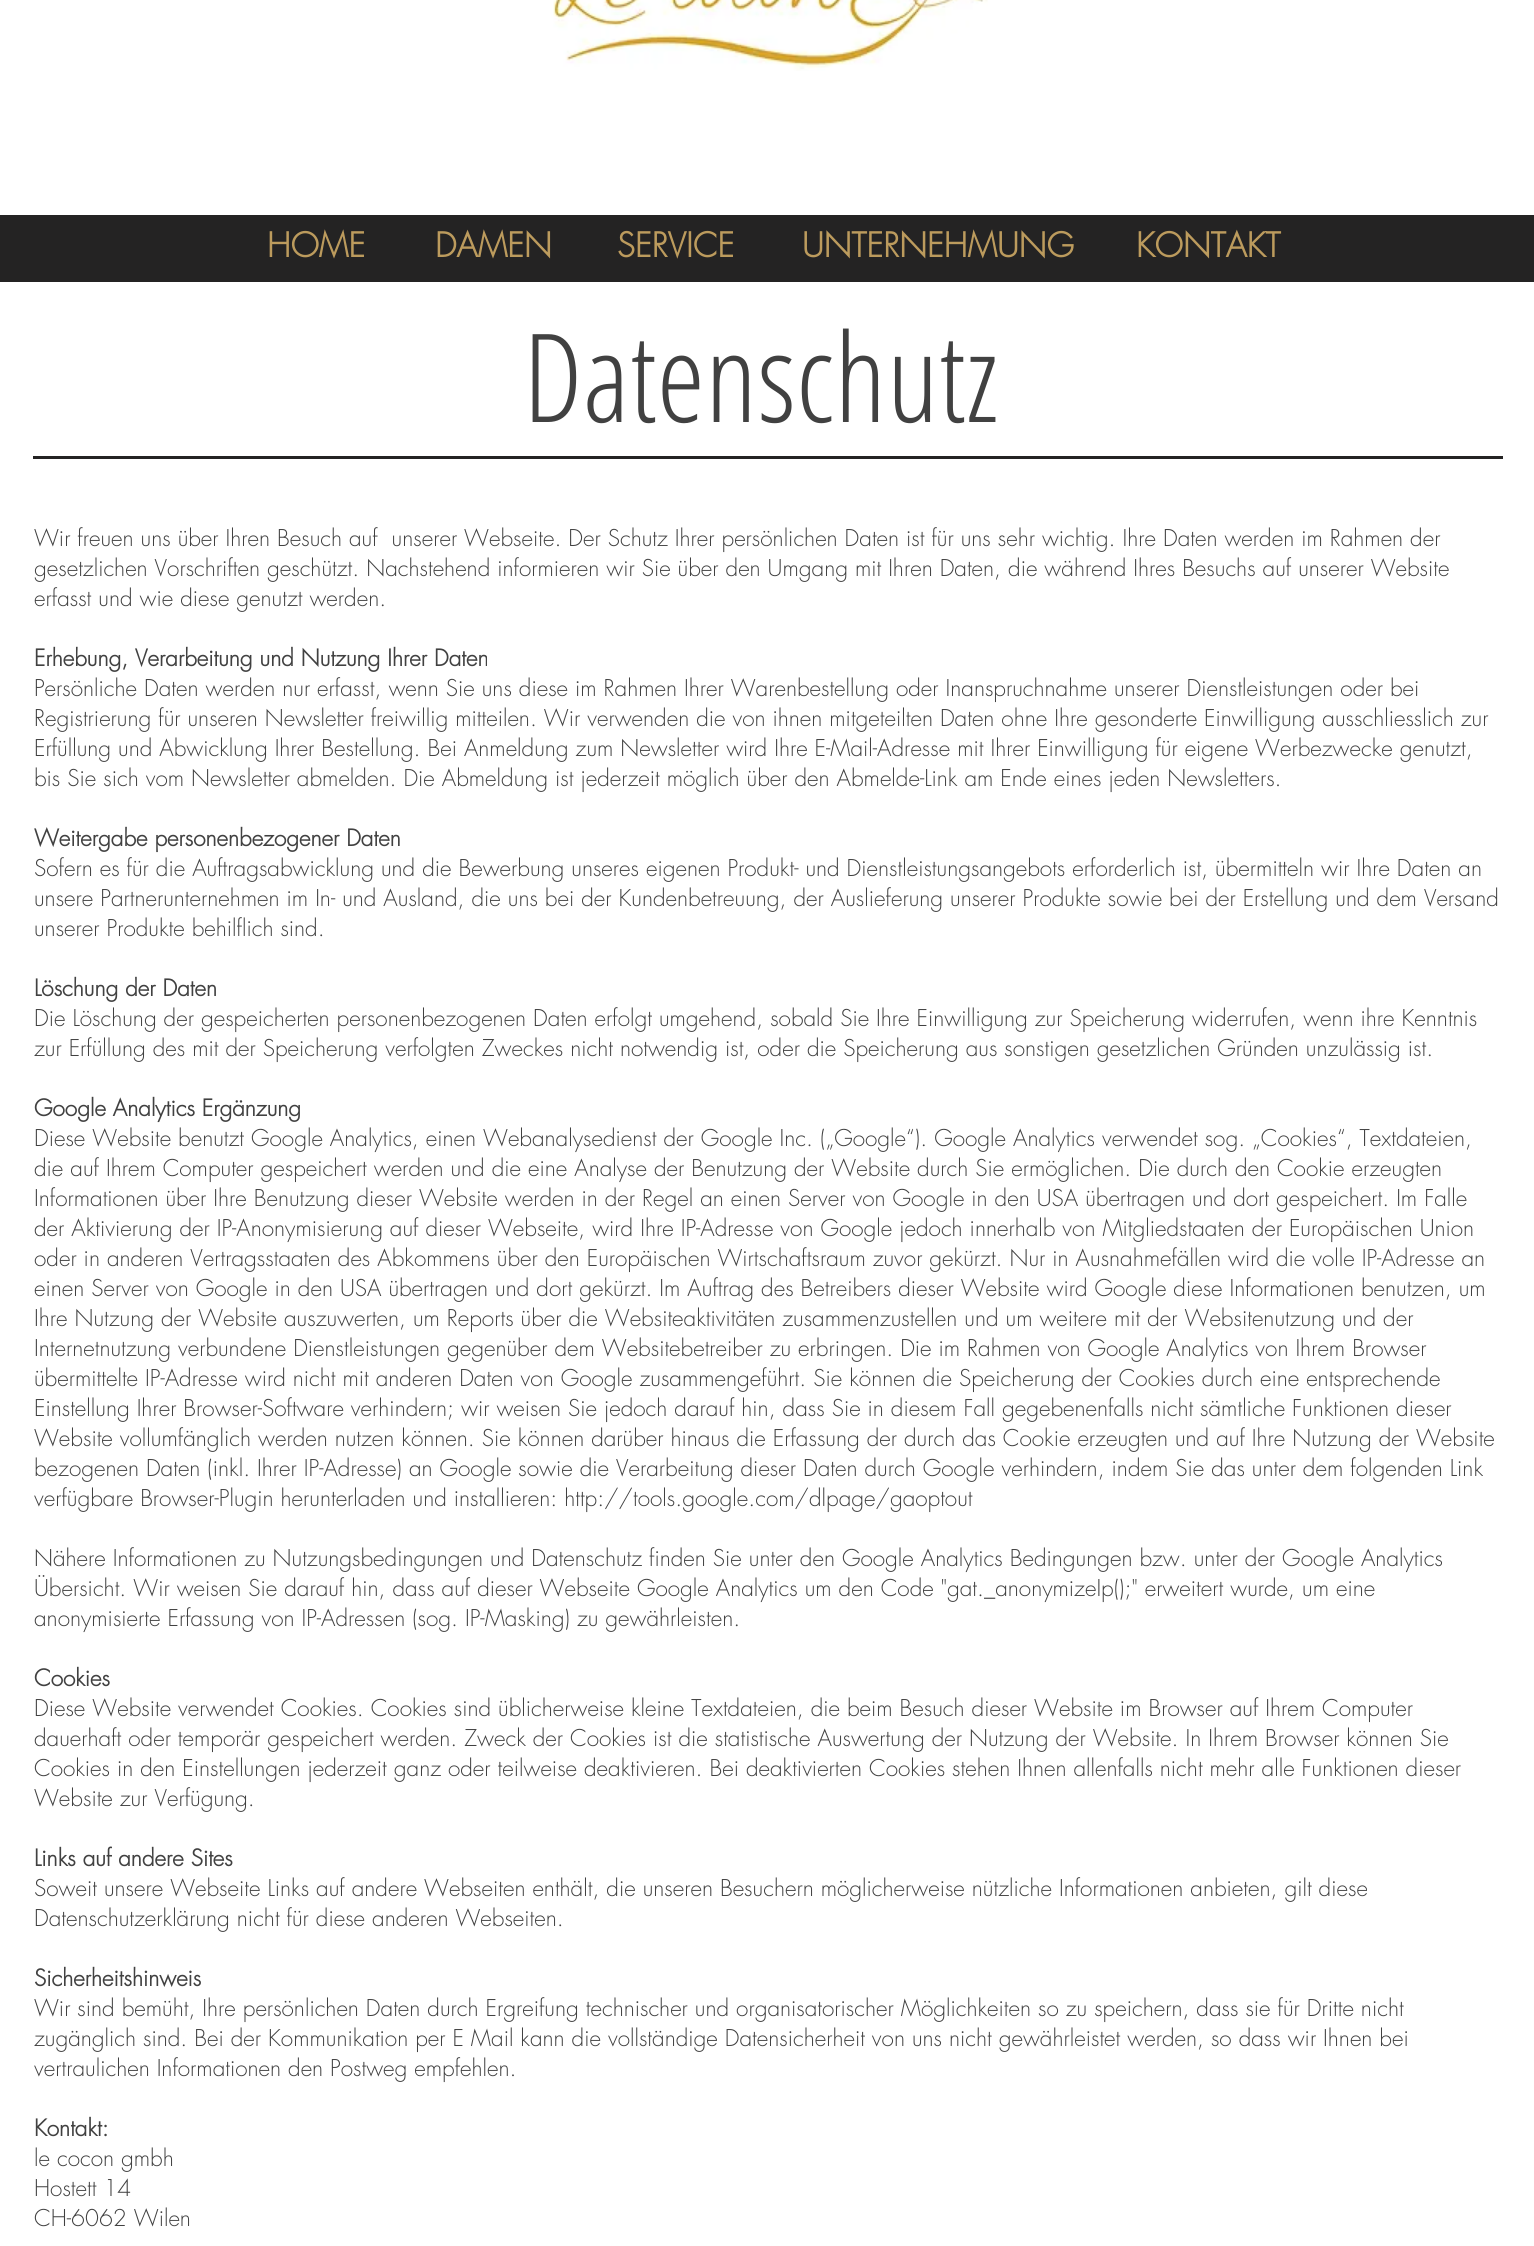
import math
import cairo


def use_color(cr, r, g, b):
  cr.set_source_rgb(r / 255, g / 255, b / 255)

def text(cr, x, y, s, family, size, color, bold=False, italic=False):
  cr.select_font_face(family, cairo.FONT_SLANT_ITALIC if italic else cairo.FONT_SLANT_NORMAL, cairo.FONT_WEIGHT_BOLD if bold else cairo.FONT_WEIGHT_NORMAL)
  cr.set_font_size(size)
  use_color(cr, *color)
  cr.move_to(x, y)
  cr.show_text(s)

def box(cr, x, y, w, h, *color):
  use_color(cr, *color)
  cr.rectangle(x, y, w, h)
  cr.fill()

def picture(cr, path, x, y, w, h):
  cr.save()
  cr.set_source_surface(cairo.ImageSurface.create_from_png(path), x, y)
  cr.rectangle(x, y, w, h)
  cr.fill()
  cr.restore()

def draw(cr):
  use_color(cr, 255, 255, 255)
  cr.paint()
  picture(cr, "img_01.png", 553, 0, 435, 71)
  box(cr, 0, 215, 1534, 67, 36, 35, 35)
  box(cr, 33, 456, 1470, 3, 36, 35, 35)
  text(cr, 267, 257, "HOME", "futura", 33, (188, 155, 93), bold=True)
  text(cr, 435, 257, "DAMEN", "futura", 33, (188, 155, 93), bold=True)
  text(cr, 617, 257, "SERVICE", "futura", 33, (188, 155, 93), bold=True)
  text(cr, 802, 257, "UNTERNEHMUNG", "futura", 33, (188, 155, 93), bold=True)
  text(cr, 1136, 257, "KONTAKT", "futura", 33, (188, 155, 93), bold=True)
  text(cr, 523, 422, "Datenschutz", "Open Sans Condensed Light", 123, (65, 65, 65))
  text(cr, 34, 546, "Wir freuen uns über Ihren Besuch auf  unserer Webseite. Der Schutz Ihrer persönlichen Daten ist für uns sehr wichtig. Ihre Daten werden im Rahmen der", "futura Light", 22.5, (65, 65, 65))
  text(cr, 34, 576, "gesetzlichen Vorschriften geschützt. Nachstehend informieren wir Sie über den Umgang mit Ihren Daten, die während Ihres Besuchs auf unserer Website", "futura Light", 22.5, (65, 65, 65))
  text(cr, 34, 606, "erfasst und wie diese genutzt werden.", "futura Light", 22.5, (65, 65, 65))
  text(cr, 34, 666, "Erhebung, Verarbeitung und Nutzung Ihrer Daten", "futura", 22.5, (65, 65, 65), bold=True)
  text(cr, 34, 696, "Persönliche Daten werden nur erfasst, wenn Sie uns diese im Rahmen Ihrer Warenbestellung oder Inanspruchnahme unserer Dienstleistungen oder bei", "futura Light", 22.5, (65, 65, 65))
  text(cr, 34, 726, "Registrierung für unseren Newsletter freiwillig mitteilen. Wir verwenden die von ihnen mitgeteilten Daten ohne Ihre gesonderte Einwilligung ausschliesslich zur", "futura Light", 22.5, (65, 65, 65))
  text(cr, 34, 756, "Erfüllung und Abwicklung Ihrer Bestellung. Bei Anmeldung zum Newsletter wird Ihre E-Mail-Adresse mit Ihrer Einwilligung für eigene Werbezwecke genutzt,", "futura Light", 22.5, (65, 65, 65))
  text(cr, 34, 786, "bis Sie sich vom Newsletter abmelden. Die Abmeldung ist jederzeit möglich über den Abmelde-Link am Ende eines jeden Newsletters.", "futura Light", 22.5, (65, 65, 65))
  text(cr, 34, 846, "Weitergabe personenbezogener Daten", "futura", 22.5, (65, 65, 65), bold=True)
  text(cr, 34, 876, "Sofern es für die Auftragsabwicklung und die Bewerbung unseres eigenen Produkt- und Dienstleistungsangebots erforderlich ist, übermitteln wir Ihre Daten an", "futura Light", 22.5, (65, 65, 65))
  text(cr, 34, 906, "unsere Partnerunternehmen im In- und Ausland, die uns bei der Kundenbetreuung, der Auslieferung unserer Produkte sowie bei der Erstellung und dem Versand", "futura Light", 22.5, (65, 65, 65))
  text(cr, 34, 936, "unserer Produkte behilflich sind.", "futura Light", 22.5, (65, 65, 65))
  text(cr, 34, 996, "Löschung der Daten", "futura", 22.5, (65, 65, 65), bold=True)
  text(cr, 34, 1026, "Die Löschung der gespeicherten personenbezogenen Daten erfolgt umgehend, sobald Sie Ihre Einwilligung zur Speicherung widerrufen, wenn ihre Kenntnis", "futura Light", 22.5, (65, 65, 65))
  text(cr, 34, 1056, "zur Erfüllung des mit der Speicherung verfolgten Zweckes nicht notwendig ist, oder die Speicherung aus sonstigen gesetzlichen Gründen unzulässig ist.", "futura Light", 22.5, (65, 65, 65))
  text(cr, 34, 1116, "Google Analytics Ergänzung", "futura", 22.5, (65, 65, 65), bold=True)
  text(cr, 34, 1146, "Diese Website benutzt Google Analytics, einen Webanalysedienst der Google Inc. („Google“). Google Analytics verwendet sog. „Cookies“, Textdateien,", "futura Light", 22.5, (65, 65, 65))
  text(cr, 34, 1176, "die auf Ihrem Computer gespeichert werden und die eine Analyse der Benutzung der Website durch Sie ermöglichen. Die durch den Cookie erzeugten", "futura Light", 22.5, (65, 65, 65))
  text(cr, 34, 1206, "Informationen über Ihre Benutzung dieser Website werden in der Regel an einen Server von Google in den USA übertragen und dort gespeichert. Im Falle", "futura Light", 22.5, (65, 65, 65))
  text(cr, 34, 1236, "der Aktivierung der IP-Anonymisierung auf dieser Webseite, wird Ihre IP-Adresse von Google jedoch innerhalb von Mitgliedstaaten der Europäischen Union", "futura Light", 22.5, (65, 65, 65))
  text(cr, 34, 1266, "oder in anderen Vertragsstaaten des Abkommens über den Europäischen Wirtschaftsraum zuvor gekürzt. Nur in Ausnahmefällen wird die volle IP-Adresse an", "futura Light", 22.5, (65, 65, 65))
  text(cr, 34, 1296, "einen Server von Google in den USA übertragen und dort gekürzt. Im Auftrag des Betreibers dieser Website wird Google diese Informationen benutzen, um", "futura Light", 22.5, (65, 65, 65))
  text(cr, 34, 1326, "Ihre Nutzung der Website auszuwerten, um Reports über die Websiteaktivitäten zusammenzustellen und um weitere mit der Websitenutzung und der", "futura Light", 22.5, (65, 65, 65))
  text(cr, 34, 1356, "Internetnutzung verbundene Dienstleistungen gegenüber dem Websitebetreiber zu erbringen. Die im Rahmen von Google Analytics von Ihrem Browser", "futura Light", 22.5, (65, 65, 65))
  text(cr, 34, 1386, "übermittelte IP-Adresse wird nicht mit anderen Daten von Google zusammengeführt. Sie können die Speicherung der Cookies durch eine entsprechende", "futura Light", 22.5, (65, 65, 65))
  text(cr, 34, 1416, "Einstellung Ihrer Browser-Software verhindern; wir weisen Sie jedoch darauf hin, dass Sie in diesem Fall gegebenenfalls nicht sämtliche Funktionen dieser", "futura Light", 22.5, (65, 65, 65))
  text(cr, 34, 1446, "Website vollumfänglich werden nutzen können. Sie können darüber hinaus die Erfassung der durch das Cookie erzeugten und auf Ihre Nutzung der Website", "futura Light", 22.5, (65, 65, 65))
  text(cr, 34, 1476, "bezogenen Daten (inkl. Ihrer IP-Adresse) an Google sowie die Verarbeitung dieser Daten durch Google verhindern, indem Sie das unter dem folgenden Link", "futura Light", 22.5, (65, 65, 65))
  text(cr, 34, 1506, "verfügbare Browser-Plugin herunterladen und installieren: http://tools.google.com/dlpage/gaoptout", "futura Light", 22.5, (65, 65, 65))
  text(cr, 34, 1566, "Nähere Informationen zu Nutzungsbedingungen und Datenschutz finden Sie unter den Google Analytics Bedingungen bzw. unter der Google Analytics", "futura Light", 22.5, (65, 65, 65))
  text(cr, 34, 1596, "Übersicht. Wir weisen Sie darauf hin, dass auf dieser Webseite Google Analytics um den Code \"gat._anonymizeIp();\" erweitert wurde, um eine", "futura Light", 22.5, (65, 65, 65))
  text(cr, 34, 1626, "anonymisierte Erfassung von IP-Adressen (sog. IP-Masking) zu gewährleisten.", "futura Light", 22.5, (65, 65, 65))
  text(cr, 34, 1686, "Cookies", "futura", 22.5, (65, 65, 65), bold=True)
  text(cr, 34, 1716, "Diese Website verwendet Cookies. Cookies sind üblicherweise kleine Textdateien, die beim Besuch dieser Website im Browser auf Ihrem Computer", "futura Light", 22.5, (65, 65, 65))
  text(cr, 34, 1746, "dauerhaft oder temporär gespeichert werden. Zweck der Cookies ist die statistische Auswertung der Nutzung der Website. In Ihrem Browser können Sie", "futura Light", 22.5, (65, 65, 65))
  text(cr, 34, 1776, "Cookies in den Einstellungen jederzeit ganz oder teilweise deaktivieren. Bei deaktivierten Cookies stehen Ihnen allenfalls nicht mehr alle Funktionen dieser", "futura Light", 22.5, (65, 65, 65))
  text(cr, 34, 1806, "Website zur Verfügung.", "futura Light", 22.5, (65, 65, 65))
  text(cr, 34, 1866, "Links auf andere Sites", "futura", 22.5, (65, 65, 65), bold=True)
  text(cr, 34, 1896, "Soweit unsere Webseite Links auf andere Webseiten enthält, die unseren Besuchern möglicherweise nützliche Informationen anbieten, gilt diese", "futura Light", 22.5, (65, 65, 65))
  text(cr, 34, 1926, "Datenschutzerklärung nicht für diese anderen Webseiten.", "futura Light", 22.5, (65, 65, 65))
  text(cr, 34, 1986, "Sicherheitshinweis", "futura", 22.5, (65, 65, 65), bold=True)
  text(cr, 34, 2016, "Wir sind bemüht, Ihre persönlichen Daten durch Ergreifung technischer und organisatorischer Möglichkeiten so zu speichern, dass sie für Dritte nicht", "futura Light", 22.5, (65, 65, 65))
  text(cr, 34, 2046, "zugänglich sind. Bei der Kommunikation per E Mail kann die vollständige Datensicherheit von uns nicht gewährleistet werden, so dass wir Ihnen bei", "futura Light", 22.5, (65, 65, 65))
  text(cr, 34, 2076, "vertraulichen Informationen den Postweg empfehlen.", "futura Light", 22.5, (65, 65, 65))
  text(cr, 34, 2136, "Kontakt:", "futura", 22.5, (65, 65, 65), bold=True)
  text(cr, 34, 2166, "le cocon gmbh", "futura Light", 22.5, (65, 65, 65))
  text(cr, 34, 2196, "Hostett 14", "futura Light", 22.5, (65, 65, 65))
  text(cr, 34, 2226, "CH-6062 Wilen", "futura Light", 22.5, (65, 65, 65))


surface = cairo.ImageSurface(cairo.FORMAT_RGB24, 1534, 2246)
cr = cairo.Context(surface)
options = cairo.FontOptions()
options.set_hint_metrics(cairo.HINT_METRICS_OFF)
options.set_hint_style(cairo.HINT_STYLE_NONE)
cr.set_font_options(options)
cr.set_miter_limit(4)
draw(cr)
surface.write_to_png("out.png")
